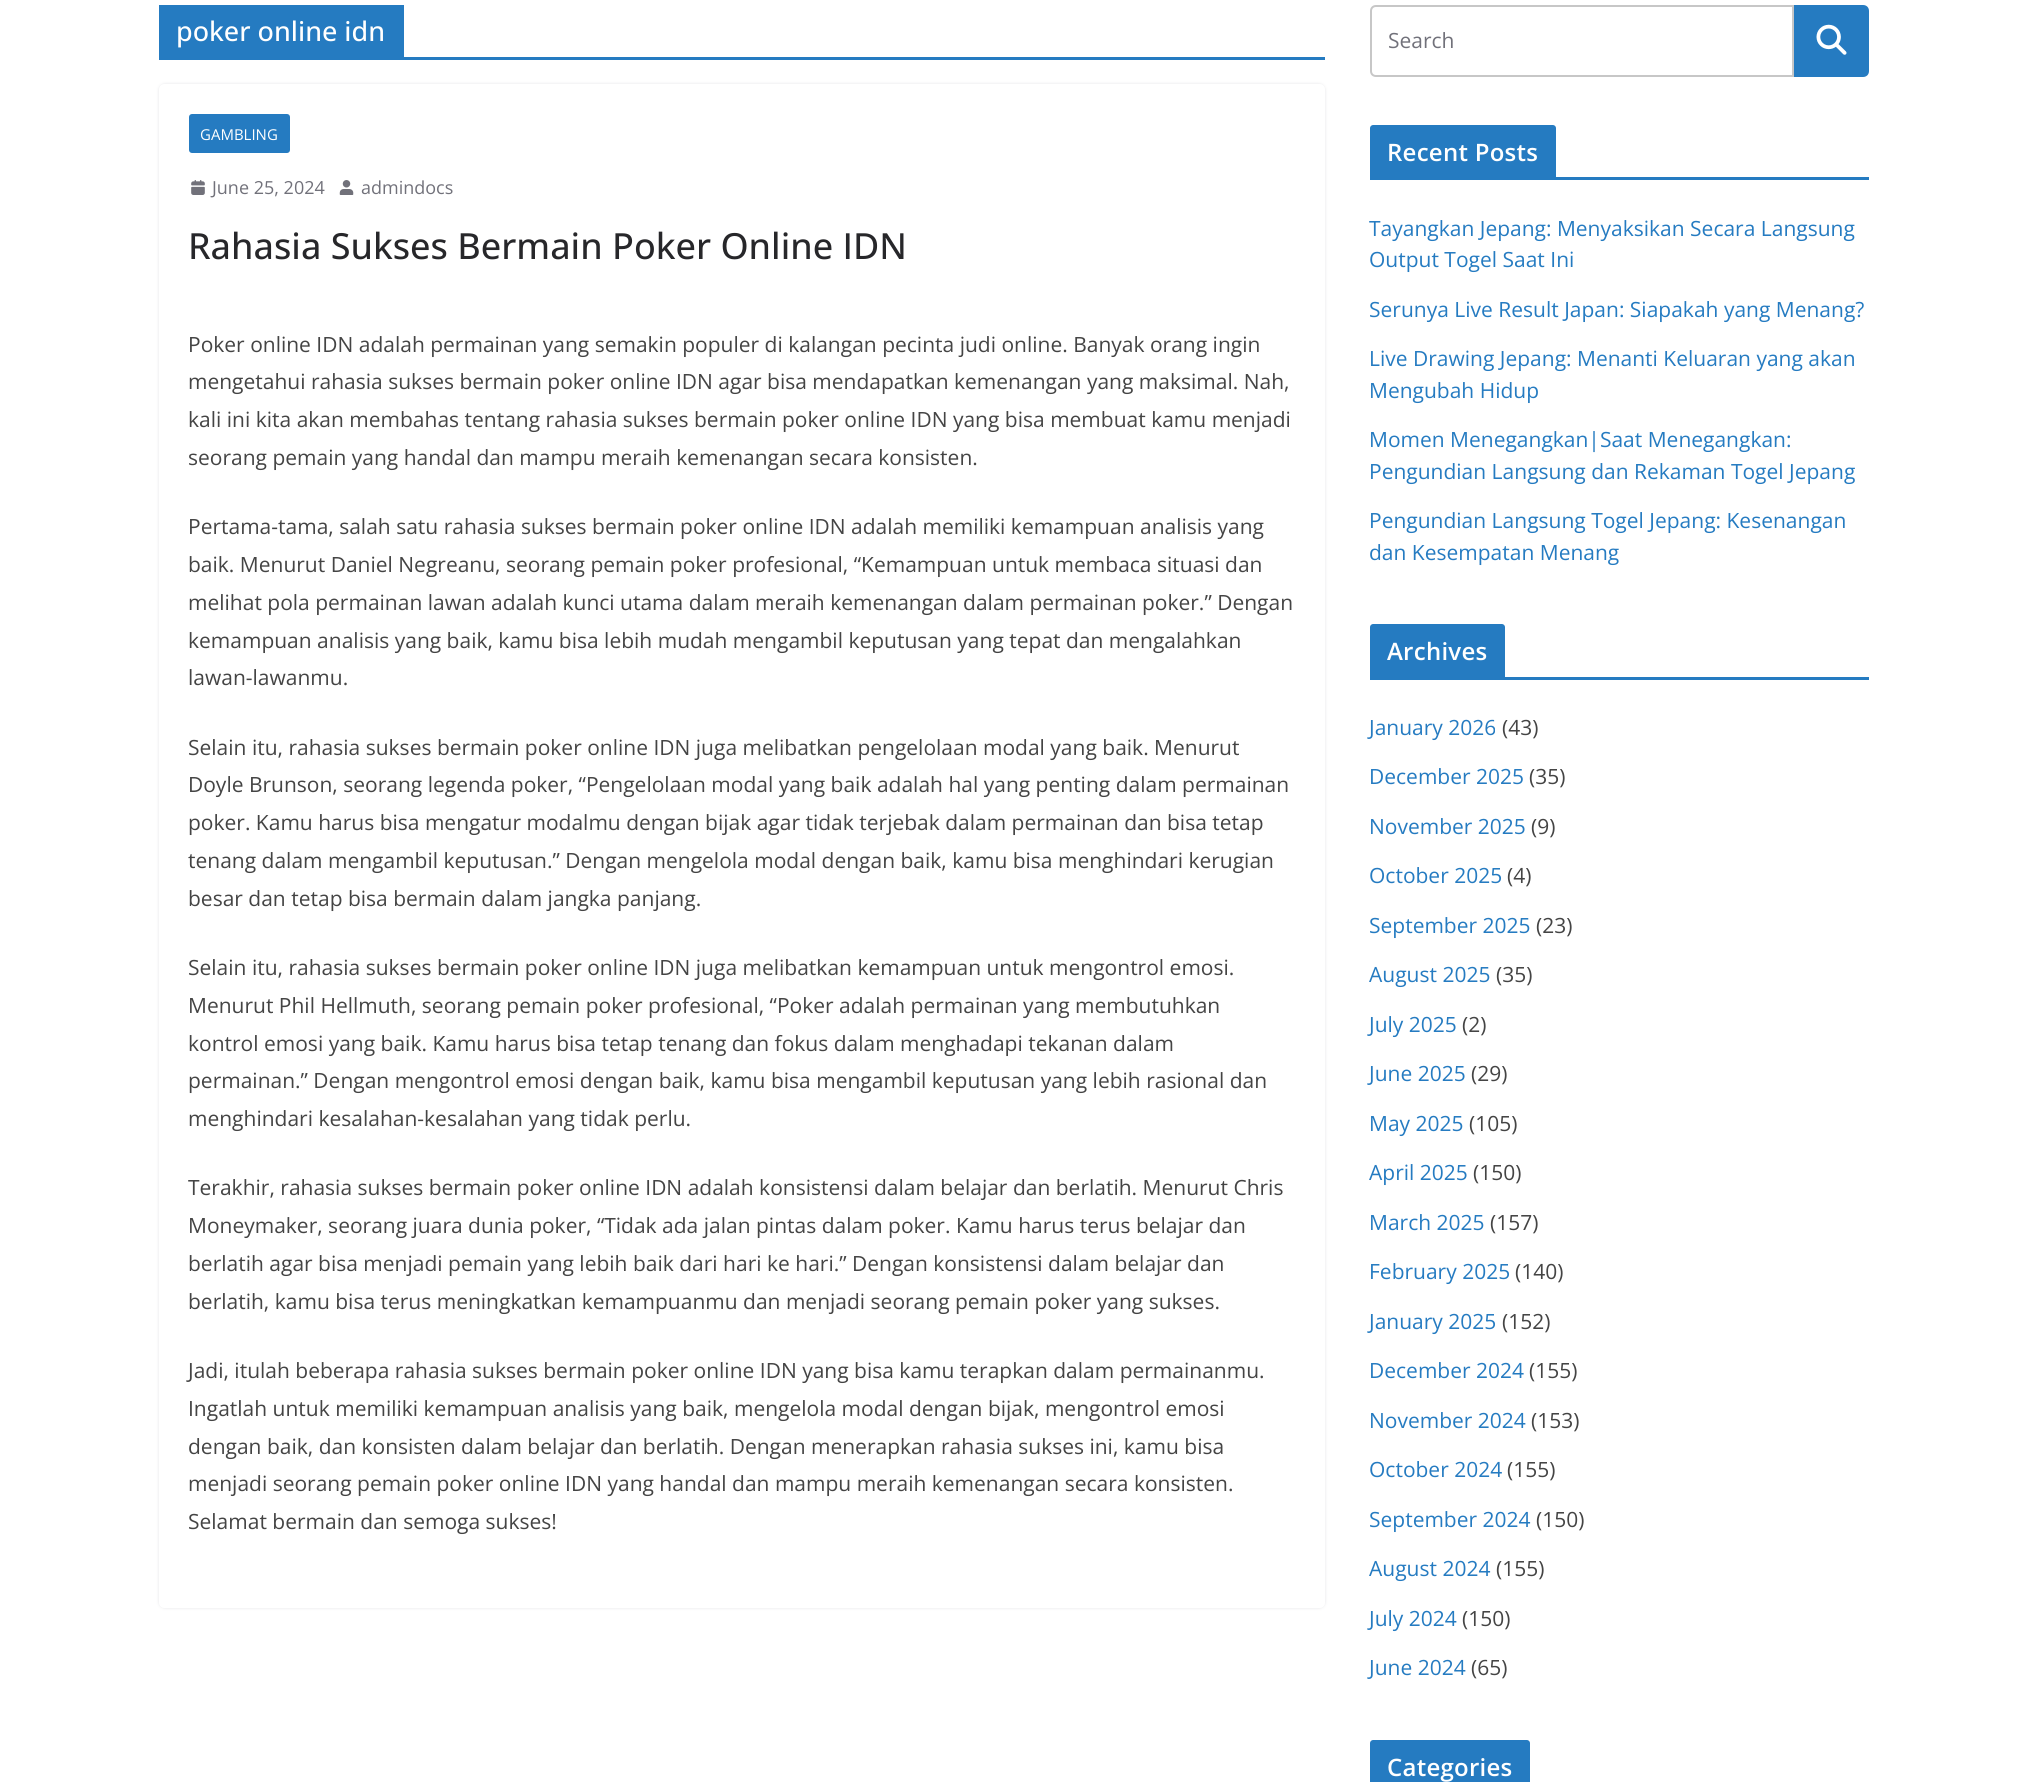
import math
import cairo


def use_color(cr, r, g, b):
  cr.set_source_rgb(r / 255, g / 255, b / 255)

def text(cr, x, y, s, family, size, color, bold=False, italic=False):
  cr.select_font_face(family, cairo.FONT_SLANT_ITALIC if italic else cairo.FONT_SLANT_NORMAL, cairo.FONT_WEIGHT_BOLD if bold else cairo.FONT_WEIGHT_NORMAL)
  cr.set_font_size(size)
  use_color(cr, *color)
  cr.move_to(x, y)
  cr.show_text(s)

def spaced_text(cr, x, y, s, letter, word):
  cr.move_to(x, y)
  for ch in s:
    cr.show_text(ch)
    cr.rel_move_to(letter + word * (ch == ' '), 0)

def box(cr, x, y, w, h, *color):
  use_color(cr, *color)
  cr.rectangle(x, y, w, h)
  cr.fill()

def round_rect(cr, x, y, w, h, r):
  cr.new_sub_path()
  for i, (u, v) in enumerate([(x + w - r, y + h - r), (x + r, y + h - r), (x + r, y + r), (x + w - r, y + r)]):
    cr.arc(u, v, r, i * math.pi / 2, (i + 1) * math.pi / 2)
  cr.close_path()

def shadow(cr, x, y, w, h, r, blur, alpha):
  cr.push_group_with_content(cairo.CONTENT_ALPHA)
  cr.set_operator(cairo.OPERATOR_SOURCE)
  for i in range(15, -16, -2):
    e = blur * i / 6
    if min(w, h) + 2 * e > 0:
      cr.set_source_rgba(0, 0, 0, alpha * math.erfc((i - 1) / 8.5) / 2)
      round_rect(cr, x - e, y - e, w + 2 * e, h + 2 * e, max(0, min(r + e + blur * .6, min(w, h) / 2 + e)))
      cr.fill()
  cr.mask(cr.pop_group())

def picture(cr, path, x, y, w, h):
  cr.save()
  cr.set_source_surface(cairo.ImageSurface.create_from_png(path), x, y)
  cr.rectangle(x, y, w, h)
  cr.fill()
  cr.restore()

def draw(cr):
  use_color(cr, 255, 255, 255)
  cr.paint()
  box(cr, 159, 57, 1166, 3, 37, 123, 193)
  box(cr, 159, 5, 245, 52, 37, 123, 193)
  cr.save()
  cr.set_fill_rule(cairo.FILL_RULE_EVEN_ODD)
  cr.new_path()
  cr.move_to(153, 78)
  cr.line_to(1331, 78)
  cr.line_to(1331, 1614)
  cr.line_to(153, 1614)
  cr.close_path()
  cr.move_to(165, 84)
  cr.line_to(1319, 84)
  cr.curve_to(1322.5, 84, 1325, 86.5, 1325, 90)
  cr.line_to(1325, 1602)
  cr.curve_to(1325, 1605.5, 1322.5, 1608, 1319, 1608)
  cr.line_to(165, 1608)
  cr.curve_to(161.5, 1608, 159, 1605.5, 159, 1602)
  cr.line_to(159, 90)
  cr.curve_to(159, 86.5, 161.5, 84, 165, 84)
  cr.close_path()
  cr.clip()
  use_color(cr, 228, 228, 231)
  shadow(cr, 159, 84, 1166, 1524, 6, 1.5, 1)
  cr.restore()
  round_rect(cr, 189, 114, 101, 39, 3)
  cr.fill()
  picture(cr, "img_01.png", 191, 180, 14, 15)
  picture(cr, "img_02.png", 339, 180, 15, 15)
  cr.new_path()
  cr.move_to(1376, 6)
  cr.line_to(1793, 6)
  cr.line_to(1793, 76)
  cr.line_to(1376, 76)
  cr.curve_to(1373, 76, 1371, 74, 1371, 71)
  cr.line_to(1371, 11)
  cr.curve_to(1371, 8, 1373, 6, 1376, 6)
  cr.close_path()
  use_color(cr, 199, 199, 199)
  cr.stroke()
  use_color(cr, 37, 123, 193)
  cr.new_path()
  cr.move_to(1795, 6)
  cr.line_to(1863, 6)
  cr.curve_to(1866, 6, 1868, 8, 1868, 11)
  cr.line_to(1868, 71)
  cr.curve_to(1868, 74, 1866, 76, 1863, 76)
  cr.line_to(1795, 76)
  cr.close_path()
  cr.fill_preserve()
  cr.stroke()
  picture(cr, "img_03.png", 1816, 24, 31, 31)
  box(cr, 1370, 177, 499, 3, 37, 123, 193)
  cr.new_path()
  cr.move_to(1373, 125)
  cr.line_to(1553, 125)
  cr.curve_to(1554.5, 125, 1556, 126.5, 1556, 128)
  cr.line_to(1556, 177)
  cr.line_to(1370, 177)
  cr.line_to(1370, 128)
  cr.curve_to(1370, 126.5, 1371.5, 125, 1373, 125)
  cr.close_path()
  cr.fill()
  box(cr, 1370, 677, 499, 3, 37, 123, 193)
  cr.new_path()
  cr.move_to(1373, 624)
  cr.line_to(1502, 624)
  cr.curve_to(1503.5, 624, 1505, 625.5, 1505, 627)
  cr.line_to(1505, 677)
  cr.line_to(1370, 677)
  cr.line_to(1370, 627)
  cr.curve_to(1370, 625.5, 1371.5, 624, 1373, 624)
  cr.close_path()
  cr.fill()
  cr.new_path()
  cr.move_to(1373, 1740)
  cr.line_to(1527, 1740)
  cr.curve_to(1528.5, 1740, 1530, 1741.5, 1530, 1743)
  cr.line_to(1530, 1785)
  cr.line_to(1370, 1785)
  cr.line_to(1370, 1743)
  cr.curve_to(1370, 1741.5, 1371.5, 1740, 1373, 1740)
  cr.close_path()
  cr.fill()
  text(cr, 176, 41, "poker online idn", "Open Sans Medium", 27, (255, 255, 255))
  text(cr, 200, 140, "GAMBLING", "Open Sans", 15, (255, 255, 255))
  text(cr, 212, 194, "June 25, 2024", "Open Sans", 18, (113, 113, 122))
  text(cr, 361, 194, "admindocs", "Open Sans", 18, (113, 113, 122))
  text(cr, 188, 259, "Rahasia Sukses Bermain Poker Online IDN", "Open Sans Medium", 36, (39, 39, 42))
  text(cr, 188, 352, "Poker online IDN adalah permainan yang semakin populer di kalangan pecinta judi online. Banyak orang ingin", "Open Sans", 21, (68, 68, 68))
  text(cr, 188, 389, "mengetahui rahasia sukses bermain poker online IDN agar bisa mendapatkan kemenangan yang maksimal. Nah,", "Open Sans", 21, (68, 68, 68))
  text(cr, 188, 427, "kali ini kita akan membahas tentang rahasia sukses bermain poker online IDN yang bisa membuat kamu menjadi", "Open Sans", 21, (68, 68, 68))
  text(cr, 188, 465, "seorang pemain yang handal dan mampu meraih kemenangan secara konsisten.", "Open Sans", 21, (68, 68, 68))
  text(cr, 188, 534, "Pertama-tama, salah satu rahasia sukses bermain poker online IDN adalah memiliki kemampuan analisis yang", "Open Sans", 21, (68, 68, 68))
  text(cr, 188, 572, "baik. Menurut Daniel Negreanu, seorang pemain poker profesional, “Kemampuan untuk membaca situasi dan", "Open Sans", 21, (68, 68, 68))
  text(cr, 188, 610, "melihat pola permainan lawan adalah kunci utama dalam meraih kemenangan dalam permainan poker.” Dengan", "Open Sans", 21, (68, 68, 68))
  text(cr, 188, 648, "kemampuan analisis yang baik, kamu bisa lebih mudah mengambil keputusan yang tepat dan mengalahkan", "Open Sans", 21, (68, 68, 68))
  text(cr, 188, 685, "lawan-lawanmu.", "Open Sans", 21, (68, 68, 68))
  text(cr, 188, 755, "Selain itu, rahasia sukses bermain poker online IDN juga melibatkan pengelolaan modal yang baik. Menurut", "Open Sans", 21, (68, 68, 68))
  text(cr, 188, 792, "Doyle Brunson, seorang legenda poker, “Pengelolaan modal yang baik adalah hal yang penting dalam permainan", "Open Sans", 21, (68, 68, 68))
  text(cr, 188, 830, "poker. Kamu harus bisa mengatur modalmu dengan bijak agar tidak terjebak dalam permainan dan bisa tetap", "Open Sans", 21, (68, 68, 68))
  text(cr, 188, 868, "tenang dalam mengambil keputusan.” Dengan mengelola modal dengan baik, kamu bisa menghindari kerugian", "Open Sans", 21, (68, 68, 68))
  text(cr, 188, 906, "besar dan tetap bisa bermain dalam jangka panjang.", "Open Sans", 21, (68, 68, 68))
  text(cr, 188, 975, "Selain itu, rahasia sukses bermain poker online IDN juga melibatkan kemampuan untuk mengontrol emosi.", "Open Sans", 21, (68, 68, 68))
  text(cr, 188, 1013, "Menurut Phil Hellmuth, seorang pemain poker profesional, “Poker adalah permainan yang membutuhkan", "Open Sans", 21, (68, 68, 68))
  text(cr, 188, 1051, "kontrol emosi yang baik. Kamu harus bisa tetap tenang dan fokus dalam menghadapi tekanan dalam", "Open Sans", 21, (68, 68, 68))
  text(cr, 188, 1088, "permainan.” Dengan mengontrol emosi dengan baik, kamu bisa mengambil keputusan yang lebih rasional dan", "Open Sans", 21, (68, 68, 68))
  text(cr, 188, 1126, "menghindari kesalahan-kesalahan yang tidak perlu.", "Open Sans", 21, (68, 68, 68))
  text(cr, 188, 1195, "Terakhir, rahasia sukses bermain poker online IDN adalah konsistensi dalam belajar dan berlatih. Menurut Chris", "Open Sans", 21, (68, 68, 68))
  text(cr, 188, 1233, "Moneymaker, seorang juara dunia poker, “Tidak ada jalan pintas dalam poker. Kamu harus terus belajar dan", "Open Sans", 21, (68, 68, 68))
  text(cr, 188, 1271, "berlatih agar bisa menjadi pemain yang lebih baik dari hari ke hari.” Dengan konsistensi dalam belajar dan", "Open Sans", 21, (68, 68, 68))
  text(cr, 188, 1309, "berlatih, kamu bisa terus meningkatkan kemampuanmu dan menjadi seorang pemain poker yang sukses.", "Open Sans", 21, (68, 68, 68))
  text(cr, 188, 1378, "Jadi, itulah beberapa rahasia sukses bermain poker online IDN yang bisa kamu terapkan dalam permainanmu.", "Open Sans", 21, (68, 68, 68))
  text(cr, 188, 1416, "Ingatlah untuk memiliki kemampuan analisis yang baik, mengelola modal dengan bijak, mengontrol emosi", "Open Sans", 21, (68, 68, 68))
  text(cr, 188, 1454, "dengan baik, dan konsisten dalam belajar dan berlatih. Dengan menerapkan rahasia sukses ini, kamu bisa", "Open Sans", 21, (68, 68, 68))
  text(cr, 188, 1491, "menjadi seorang pemain poker online IDN yang handal dan mampu meraih kemenangan secara konsisten.", "Open Sans", 21, (68, 68, 68))
  text(cr, 188, 1529, "Selamat bermain dan semoga sukses!", "Open Sans", 21, (68, 68, 68))
  text(cr, 1388, 48, "Search", "Open Sans", 21, (113, 113, 122))
  cr.select_font_face("Open Sans SemiBold")
  cr.set_font_size(24)
  use_color(cr, 255, 255, 255)
  spaced_text(cr, 1387, 161, "Recent Posts", 0.25, 0)
  text(cr, 1369, 236, "Tayangkan Jepang: Menyaksikan Secara Langsung", "Open Sans", 21, (37, 123, 193))
  text(cr, 1369, 267, "Output Togel Saat Ini", "Open Sans", 21, (37, 123, 193))
  text(cr, 1369, 317, "Serunya Live Result Japan: Siapakah yang Menang?", "Open Sans", 21, (37, 123, 193))
  text(cr, 1369, 366, "Live Drawing Jepang: Menanti Keluaran yang akan", "Open Sans", 21, (37, 123, 193))
  text(cr, 1369, 398, "Mengubah Hidup", "Open Sans", 21, (37, 123, 193))
  text(cr, 1369, 447, "Momen Menegangkan|Saat Menegangkan:", "Open Sans", 21, (37, 123, 193))
  text(cr, 1369, 479, "Pengundian Langsung dan Rekaman Togel Jepang", "Open Sans", 21, (37, 123, 193))
  text(cr, 1369, 528, "Pengundian Langsung Togel Jepang: Kesenangan", "Open Sans", 21, (37, 123, 193))
  text(cr, 1369, 560, "dan Kesempatan Menang", "Open Sans", 21, (37, 123, 193))
  cr.select_font_face("Open Sans SemiBold")
  cr.set_font_size(24)
  use_color(cr, 255, 255, 255)
  spaced_text(cr, 1387, 660, "Archives", 0.25, 0)
  text(cr, 1369, 735, "January 2026", "Open Sans", 21, (37, 123, 193))
  text(cr, 1502, 735, "(43)", "Open Sans", 21, (68, 68, 68))
  text(cr, 1369, 784, "December 2025", "Open Sans", 21, (37, 123, 193))
  text(cr, 1529, 784, "(35)", "Open Sans", 21, (68, 68, 68))
  text(cr, 1369, 834, "November 2025", "Open Sans", 21, (37, 123, 193))
  text(cr, 1531, 834, "(9)", "Open Sans", 21, (68, 68, 68))
  text(cr, 1369, 883, "October 2025", "Open Sans", 21, (37, 123, 193))
  text(cr, 1507, 883, "(4)", "Open Sans", 21, (68, 68, 68))
  text(cr, 1369, 933, "September 2025", "Open Sans", 21, (37, 123, 193))
  text(cr, 1536, 933, "(23)", "Open Sans", 21, (68, 68, 68))
  text(cr, 1369, 982, "August 2025", "Open Sans", 21, (37, 123, 193))
  text(cr, 1496, 982, "(35)", "Open Sans", 21, (68, 68, 68))
  text(cr, 1369, 1032, "July 2025", "Open Sans", 21, (37, 123, 193))
  text(cr, 1462, 1032, "(2)", "Open Sans", 21, (68, 68, 68))
  text(cr, 1369, 1081, "June 2025", "Open Sans", 21, (37, 123, 193))
  text(cr, 1471, 1081, "(29)", "Open Sans", 21, (68, 68, 68))
  text(cr, 1369, 1131, "May 2025", "Open Sans", 21, (37, 123, 193))
  text(cr, 1469, 1131, "(105)", "Open Sans", 21, (68, 68, 68))
  text(cr, 1369, 1180, "April 2025", "Open Sans", 21, (37, 123, 193))
  text(cr, 1473, 1180, "(150)", "Open Sans", 21, (68, 68, 68))
  text(cr, 1369, 1230, "March 2025", "Open Sans", 21, (37, 123, 193))
  text(cr, 1490, 1230, "(157)", "Open Sans", 21, (68, 68, 68))
  text(cr, 1369, 1279, "February 2025", "Open Sans", 21, (37, 123, 193))
  text(cr, 1515, 1279, "(140)", "Open Sans", 21, (68, 68, 68))
  text(cr, 1369, 1329, "January 2025", "Open Sans", 21, (37, 123, 193))
  text(cr, 1502, 1329, "(152)", "Open Sans", 21, (68, 68, 68))
  text(cr, 1369, 1378, "December 2024", "Open Sans", 21, (37, 123, 193))
  text(cr, 1529, 1378, "(155)", "Open Sans", 21, (68, 68, 68))
  text(cr, 1369, 1428, "November 2024", "Open Sans", 21, (37, 123, 193))
  text(cr, 1531, 1428, "(153)", "Open Sans", 21, (68, 68, 68))
  text(cr, 1369, 1477, "October 2024", "Open Sans", 21, (37, 123, 193))
  text(cr, 1507, 1477, "(155)", "Open Sans", 21, (68, 68, 68))
  text(cr, 1369, 1527, "September 2024", "Open Sans", 21, (37, 123, 193))
  text(cr, 1536, 1527, "(150)", "Open Sans", 21, (68, 68, 68))
  text(cr, 1369, 1576, "August 2024", "Open Sans", 21, (37, 123, 193))
  text(cr, 1496, 1576, "(155)", "Open Sans", 21, (68, 68, 68))
  text(cr, 1369, 1626, "July 2024", "Open Sans", 21, (37, 123, 193))
  text(cr, 1462, 1626, "(150)", "Open Sans", 21, (68, 68, 68))
  text(cr, 1369, 1675, "June 2024", "Open Sans", 21, (37, 123, 193))
  text(cr, 1471, 1675, "(65)", "Open Sans", 21, (68, 68, 68))
  cr.select_font_face("Open Sans SemiBold")
  cr.set_font_size(24)
  use_color(cr, 255, 255, 255)
  spaced_text(cr, 1387, 1776, "Categories", 0.25, 0)


surface = cairo.ImageSurface(cairo.FORMAT_RGB24, 2026, 1782)
cr = cairo.Context(surface)
options = cairo.FontOptions()
options.set_hint_metrics(cairo.HINT_METRICS_OFF)
options.set_hint_style(cairo.HINT_STYLE_NONE)
cr.set_font_options(options)
cr.set_miter_limit(4)
draw(cr)
surface.write_to_png("out.png")
